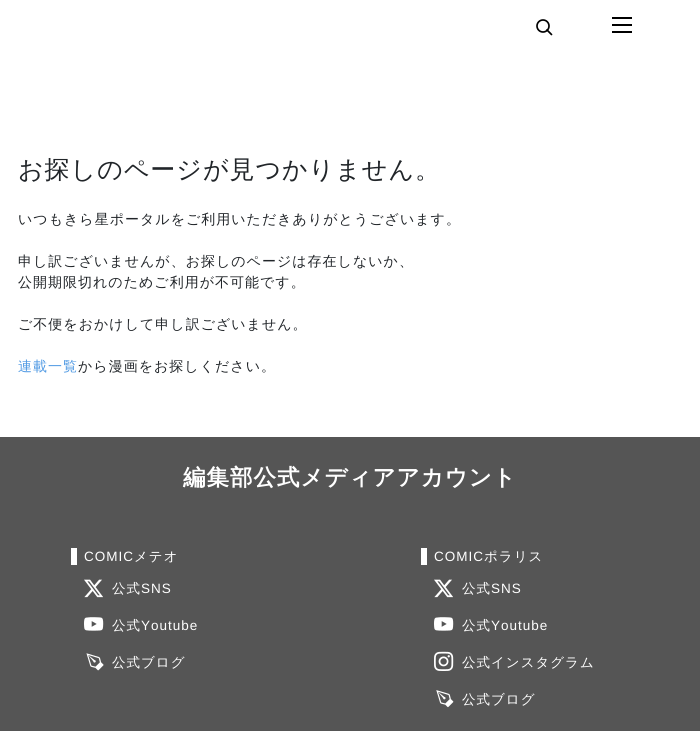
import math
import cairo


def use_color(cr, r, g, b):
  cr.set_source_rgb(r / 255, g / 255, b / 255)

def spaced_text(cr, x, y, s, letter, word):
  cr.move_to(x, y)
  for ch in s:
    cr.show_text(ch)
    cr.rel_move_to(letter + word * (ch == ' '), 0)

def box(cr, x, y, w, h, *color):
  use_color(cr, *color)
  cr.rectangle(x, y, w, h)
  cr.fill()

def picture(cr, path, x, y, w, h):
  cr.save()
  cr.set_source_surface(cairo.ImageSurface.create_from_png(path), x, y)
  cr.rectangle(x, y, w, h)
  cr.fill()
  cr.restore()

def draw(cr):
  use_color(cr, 255, 255, 255)
  cr.paint()
  cr.arc(543, 26, 6, 0, 2 * math.pi)
  use_color(cr, 0, 0, 0)
  cr.set_line_width(1.7)
  cr.stroke()
  cr.new_path()
  cr.move_to(551.5, 34.5)
  cr.line_to(547, 30)
  cr.set_line_cap(cairo.LINE_CAP_ROUND)
  cr.set_line_join(cairo.LINE_JOIN_ROUND)
  cr.stroke()
  box(cr, 612, 17, 20, 2, 0, 0, 0)
  box(cr, 612, 24, 20, 2, 0, 0, 0)
  box(cr, 612, 31, 20, 2, 0, 0, 0)
  box(cr, 0, 437, 700, 294, 85, 85, 85)
  box(cr, 71, 548, 6, 17, 255, 255, 255)
  picture(cr, "img_01.png", 84, 579, 19, 19)
  picture(cr, "img_02.png", 84, 617, 20, 14)
  picture(cr, "img_03.png", 86, 653, 18, 18)
  box(cr, 421, 548, 6, 17, 255, 255, 255)
  picture(cr, "img_01.png", 434, 579, 19, 19)
  picture(cr, "img_02.png", 434, 617, 20, 14)
  picture(cr, "img_04.png", 434, 651, 20, 20)
  picture(cr, "img_05.png", 436, 690, 18, 18)
  cr.select_font_face("WenQuanYi Zen Hei Medium")
  cr.set_font_size(25)
  use_color(cr, 33, 37, 41)
  spaced_text(cr, 18, 178, "お探しのページが見つかりません。", 1, 0)
  cr.set_font_size(14)
  spaced_text(cr, 18, 224, "いつもきら星ポータルをご利用いただきありがとうございます。", 1, 0)
  spaced_text(cr, 18, 266, "申し訳ございませんが、お探しのページは存在しないか、", 1, 0)
  spaced_text(cr, 18, 287, "公開期限切れのためご利用が不可能です。", 1, 0)
  spaced_text(cr, 18, 329, "ご不便をおかけして申し訳ございません。", 1, 0)
  use_color(cr, 79, 153, 227)
  spaced_text(cr, 18, 371, "連載一覧", 1, 0)
  use_color(cr, 33, 37, 41)
  spaced_text(cr, 78, 371, "から漫画をお探しください。", 1, 0)
  cr.select_font_face("WenQuanYi Zen Hei", cairo.FONT_SLANT_NORMAL, cairo.FONT_WEIGHT_BOLD)
  cr.set_font_size(22.5)
  use_color(cr, 255, 255, 255)
  spaced_text(cr, 183, 485, "編集部公式メディアアカウント", 1, 0)
  cr.select_font_face("Liberation Sans")
  cr.set_font_size(13.5)
  spaced_text(cr, 84, 561, "COMIC", 1, 0)
  cr.select_font_face("WenQuanYi Zen Hei Medium")
  spaced_text(cr, 134, 561, "メテオ", 1, 0)
  spaced_text(cr, 112, 593, "公式", 1, 0)
  cr.select_font_face("Liberation Sans")
  spaced_text(cr, 141, 593, "SNS", 1, 0)
  cr.select_font_face("WenQuanYi Zen Hei Medium")
  spaced_text(cr, 112, 630, "公式", 1, 0)
  cr.select_font_face("Liberation Sans")
  spaced_text(cr, 141, 630, "Youtube", 1, 0)
  cr.select_font_face("WenQuanYi Zen Hei Medium")
  spaced_text(cr, 112, 667, "公式ブログ", 1, 0)
  cr.select_font_face("Liberation Sans")
  spaced_text(cr, 434, 561, "COMIC", 1, 0)
  cr.select_font_face("WenQuanYi Zen Hei Medium")
  spaced_text(cr, 484, 561, "ポラリス", 1, 0)
  spaced_text(cr, 462, 593, "公式", 1, 0)
  cr.select_font_face("Liberation Sans")
  spaced_text(cr, 491, 593, "SNS", 1, 0)
  cr.select_font_face("WenQuanYi Zen Hei Medium")
  spaced_text(cr, 462, 630, "公式", 1, 0)
  cr.select_font_face("Liberation Sans")
  spaced_text(cr, 491, 630, "Youtube", 1, 0)
  cr.select_font_face("WenQuanYi Zen Hei Medium")
  spaced_text(cr, 462, 667, "公式インスタグラム", 1, 0)
  spaced_text(cr, 462, 704, "公式ブログ", 1, 0)


surface = cairo.ImageSurface(cairo.FORMAT_RGB24, 700, 731)
cr = cairo.Context(surface)
options = cairo.FontOptions()
options.set_hint_metrics(cairo.HINT_METRICS_OFF)
options.set_hint_style(cairo.HINT_STYLE_NONE)
cr.set_font_options(options)
cr.set_miter_limit(4)
draw(cr)
surface.write_to_png("out.png")
